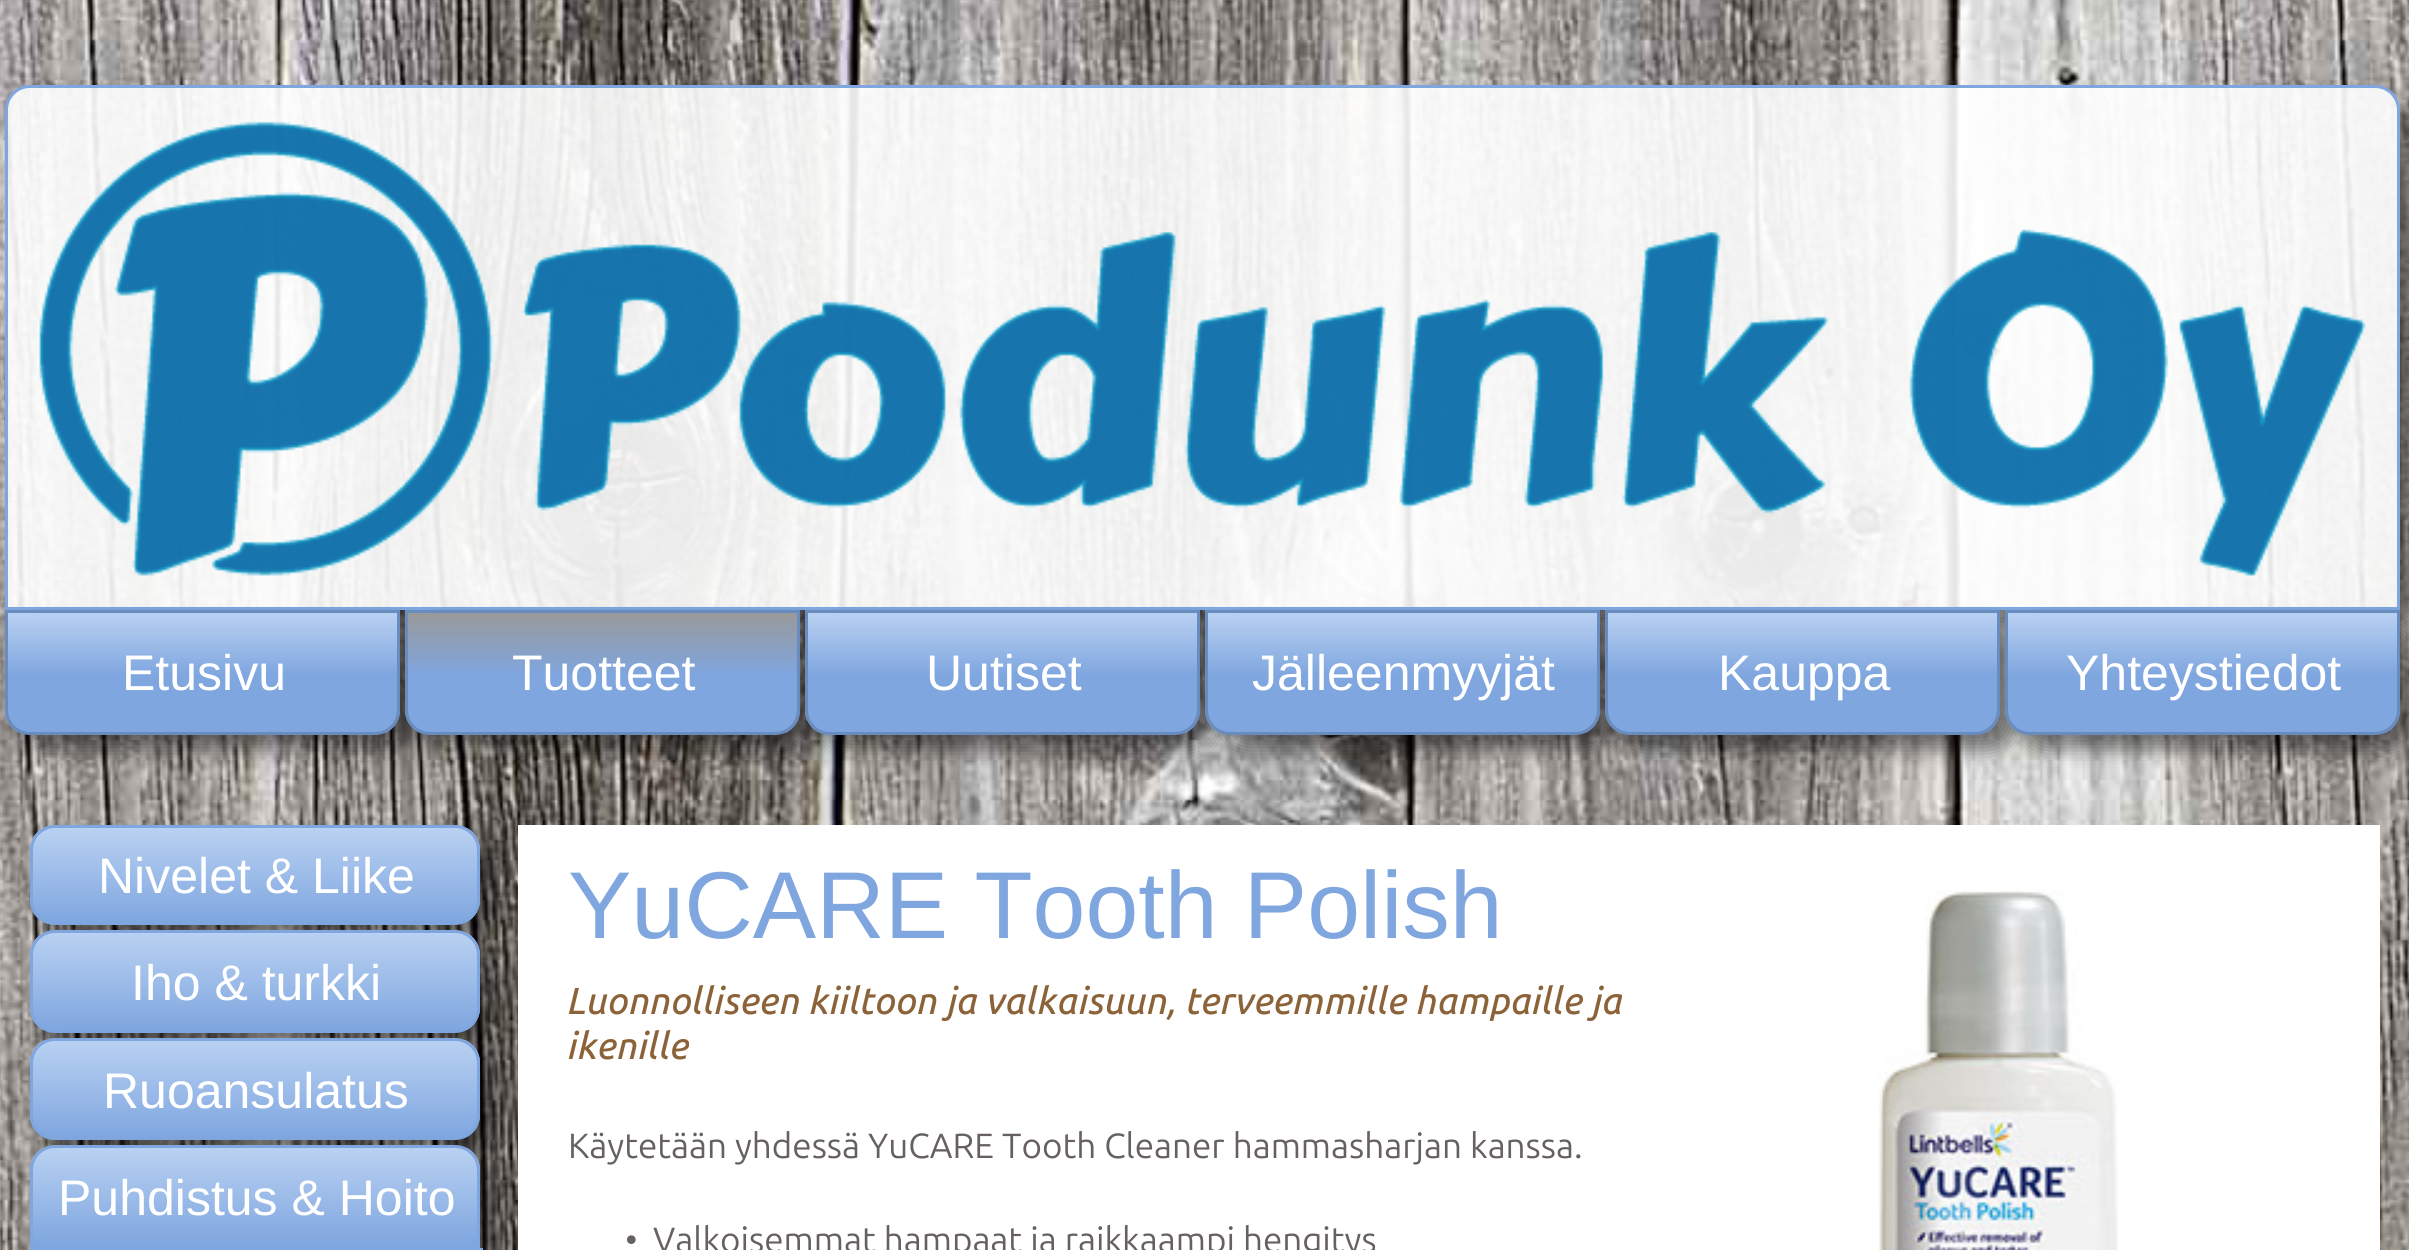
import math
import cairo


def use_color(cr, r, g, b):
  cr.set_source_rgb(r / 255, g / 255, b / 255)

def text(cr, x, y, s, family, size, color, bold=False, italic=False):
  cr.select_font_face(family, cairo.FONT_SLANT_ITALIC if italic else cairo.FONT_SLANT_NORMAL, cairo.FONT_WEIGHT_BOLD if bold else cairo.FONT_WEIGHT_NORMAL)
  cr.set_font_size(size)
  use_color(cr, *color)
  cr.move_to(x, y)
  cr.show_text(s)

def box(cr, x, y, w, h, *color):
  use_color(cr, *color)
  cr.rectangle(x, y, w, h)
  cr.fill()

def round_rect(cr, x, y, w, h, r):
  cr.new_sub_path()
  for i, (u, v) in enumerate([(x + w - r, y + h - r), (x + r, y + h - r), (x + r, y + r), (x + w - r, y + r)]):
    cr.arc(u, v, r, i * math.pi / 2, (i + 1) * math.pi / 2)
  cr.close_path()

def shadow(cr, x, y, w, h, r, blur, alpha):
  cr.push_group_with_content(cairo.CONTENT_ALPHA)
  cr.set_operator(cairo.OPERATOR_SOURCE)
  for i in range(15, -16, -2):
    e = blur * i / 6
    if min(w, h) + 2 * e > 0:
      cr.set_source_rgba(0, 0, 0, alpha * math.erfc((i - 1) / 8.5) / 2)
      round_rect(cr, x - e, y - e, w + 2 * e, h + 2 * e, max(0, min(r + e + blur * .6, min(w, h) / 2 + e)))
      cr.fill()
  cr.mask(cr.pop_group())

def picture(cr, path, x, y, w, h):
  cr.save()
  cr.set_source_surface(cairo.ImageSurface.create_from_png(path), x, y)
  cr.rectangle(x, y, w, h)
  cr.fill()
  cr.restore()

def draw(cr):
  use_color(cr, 255, 255, 255)
  cr.paint()
  picture(cr, "img_01.png", 0, 0, 2409, 1250)
  cr.save()
  cr.set_fill_rule(cairo.FILL_RULE_EVEN_ODD)
  cr.new_path()
  cr.move_to(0, 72)
  cr.line_to(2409, 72)
  cr.line_to(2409, 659)
  cr.line_to(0, 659)
  cr.close_path()
  cr.move_to(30, 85)
  cr.line_to(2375, 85)
  cr.curve_to(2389, 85, 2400, 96, 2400, 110)
  cr.line_to(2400, 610)
  cr.line_to(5, 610)
  cr.line_to(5, 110)
  cr.curve_to(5, 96, 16, 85, 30, 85)
  cr.close_path()
  cr.clip()
  use_color(cr, 0, 0, 0)
  shadow(cr, 23, 103, 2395, 525, 25, 10, 0.45)
  cr.restore()
  cr.set_source_rgba(1, 1, 1, 0.9)
  cr.new_path()
  cr.move_to(30, 86.5)
  cr.line_to(2375, 86.5)
  cr.curve_to(2388, 86.5, 2398.5, 97, 2398.5, 110)
  cr.line_to(2398.5, 608.5)
  cr.line_to(6.5, 608.5)
  cr.line_to(6.5, 110)
  cr.curve_to(6.5, 97, 17, 86.5, 30, 86.5)
  cr.close_path()
  cr.fill_preserve()
  use_color(cr, 127, 166, 223)
  cr.set_line_width(3)
  cr.stroke()
  picture(cr, "img_02.png", 39, 121, 2327, 455)
  use_color(cr, 0, 0, 0)
  shadow(cr, 20, 625, 395, 125, 25, 10, 0.5)
  cr.save()
  cr.new_path()
  cr.move_to(5, 610)
  cr.line_to(400, 610)
  cr.line_to(400, 710)
  cr.curve_to(400, 724, 389, 735, 375, 735)
  cr.line_to(30, 735)
  cr.curve_to(16, 735, 5, 724, 5, 710)
  cr.close_path()
  cr.clip()
  gradient = cairo.LinearGradient(203, 613, 203, 733)
  gradient.add_color_stop_rgba(0, 0.725, 0.82, 0.949, 1)
  gradient.add_color_stop_rgba(0.52, 0.498, 0.651, 0.875, 1)
  cr.set_source(gradient)
  cr.rectangle(5, 613, 395, 120)
  cr.fill()
  cr.restore()
  cr.new_path()
  cr.move_to(6.5, 611.5)
  cr.line_to(398.5, 611.5)
  cr.line_to(398.5, 710)
  cr.curve_to(398.5, 723, 388, 733.5, 375, 733.5)
  cr.line_to(30, 733.5)
  cr.curve_to(17, 733.5, 6.5, 723, 6.5, 710)
  cr.close_path()
  use_color(cr, 105, 140, 191)
  cr.stroke()
  use_color(cr, 0, 0, 0)
  shadow(cr, 420, 625, 395, 125, 25, 10, 0.5)
  cr.save()
  cr.new_path()
  cr.move_to(405, 610)
  cr.line_to(800, 610)
  cr.line_to(800, 710)
  cr.curve_to(800, 724, 789, 735, 775, 735)
  cr.line_to(430, 735)
  cr.curve_to(416, 735, 405, 724, 405, 710)
  cr.close_path()
  cr.clip()
  gradient = cairo.LinearGradient(603, 613, 603, 733)
  gradient.add_color_stop_rgba(0, 0.6, 0.6, 0.6, 1)
  gradient.add_color_stop_rgba(0.52, 0.498, 0.651, 0.875, 1)
  cr.set_source(gradient)
  cr.rectangle(405, 613, 395, 120)
  cr.fill()
  cr.restore()
  cr.new_path()
  cr.move_to(406.5, 611.5)
  cr.line_to(798.5, 611.5)
  cr.line_to(798.5, 710)
  cr.curve_to(798.5, 723, 788, 733.5, 775, 733.5)
  cr.line_to(430, 733.5)
  cr.curve_to(417, 733.5, 406.5, 723, 406.5, 710)
  cr.close_path()
  use_color(cr, 105, 140, 191)
  cr.stroke()
  use_color(cr, 0, 0, 0)
  shadow(cr, 820, 625, 395, 125, 25, 10, 0.5)
  cr.save()
  cr.new_path()
  cr.move_to(805, 610)
  cr.line_to(1200, 610)
  cr.line_to(1200, 710)
  cr.curve_to(1200, 724, 1189, 735, 1175, 735)
  cr.line_to(830, 735)
  cr.curve_to(816, 735, 805, 724, 805, 710)
  cr.close_path()
  cr.clip()
  gradient = cairo.LinearGradient(1003, 613, 1003, 733)
  gradient.add_color_stop_rgba(0, 0.725, 0.82, 0.949, 1)
  gradient.add_color_stop_rgba(0.52, 0.498, 0.651, 0.875, 1)
  cr.set_source(gradient)
  cr.rectangle(805, 613, 395, 120)
  cr.fill()
  cr.restore()
  cr.new_path()
  cr.move_to(806.5, 611.5)
  cr.line_to(1198.5, 611.5)
  cr.line_to(1198.5, 710)
  cr.curve_to(1198.5, 723, 1188, 733.5, 1175, 733.5)
  cr.line_to(830, 733.5)
  cr.curve_to(817, 733.5, 806.5, 723, 806.5, 710)
  cr.close_path()
  use_color(cr, 105, 140, 191)
  cr.stroke()
  use_color(cr, 0, 0, 0)
  shadow(cr, 1220, 625, 395, 125, 25, 10, 0.5)
  cr.save()
  cr.new_path()
  cr.move_to(1205, 610)
  cr.line_to(1600, 610)
  cr.line_to(1600, 710)
  cr.curve_to(1600, 724, 1589, 735, 1575, 735)
  cr.line_to(1230, 735)
  cr.curve_to(1216, 735, 1205, 724, 1205, 710)
  cr.close_path()
  cr.clip()
  gradient = cairo.LinearGradient(1403, 613, 1403, 733)
  gradient.add_color_stop_rgba(0, 0.725, 0.82, 0.949, 1)
  gradient.add_color_stop_rgba(0.52, 0.498, 0.651, 0.875, 1)
  cr.set_source(gradient)
  cr.rectangle(1205, 613, 395, 120)
  cr.fill()
  cr.restore()
  cr.new_path()
  cr.move_to(1206.5, 611.5)
  cr.line_to(1598.5, 611.5)
  cr.line_to(1598.5, 710)
  cr.curve_to(1598.5, 723, 1588, 733.5, 1575, 733.5)
  cr.line_to(1230, 733.5)
  cr.curve_to(1217, 733.5, 1206.5, 723, 1206.5, 710)
  cr.close_path()
  use_color(cr, 105, 140, 191)
  cr.stroke()
  use_color(cr, 0, 0, 0)
  shadow(cr, 1620, 625, 395, 125, 25, 10, 0.5)
  cr.save()
  cr.new_path()
  cr.move_to(1605, 610)
  cr.line_to(2000, 610)
  cr.line_to(2000, 710)
  cr.curve_to(2000, 724, 1989, 735, 1975, 735)
  cr.line_to(1630, 735)
  cr.curve_to(1616, 735, 1605, 724, 1605, 710)
  cr.close_path()
  cr.clip()
  gradient = cairo.LinearGradient(1803, 613, 1803, 733)
  gradient.add_color_stop_rgba(0, 0.725, 0.82, 0.949, 1)
  gradient.add_color_stop_rgba(0.52, 0.498, 0.651, 0.875, 1)
  cr.set_source(gradient)
  cr.rectangle(1605, 613, 395, 120)
  cr.fill()
  cr.restore()
  cr.new_path()
  cr.move_to(1606.5, 611.5)
  cr.line_to(1998.5, 611.5)
  cr.line_to(1998.5, 710)
  cr.curve_to(1998.5, 723, 1988, 733.5, 1975, 733.5)
  cr.line_to(1630, 733.5)
  cr.curve_to(1617, 733.5, 1606.5, 723, 1606.5, 710)
  cr.close_path()
  use_color(cr, 105, 140, 191)
  cr.stroke()
  use_color(cr, 0, 0, 0)
  shadow(cr, 2020, 625, 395, 125, 25, 10, 0.5)
  cr.save()
  cr.new_path()
  cr.move_to(2005, 610)
  cr.line_to(2400, 610)
  cr.line_to(2400, 710)
  cr.curve_to(2400, 724, 2389, 735, 2375, 735)
  cr.line_to(2030, 735)
  cr.curve_to(2016, 735, 2005, 724, 2005, 710)
  cr.close_path()
  cr.clip()
  gradient = cairo.LinearGradient(2203, 613, 2203, 733)
  gradient.add_color_stop_rgba(0, 0.725, 0.82, 0.949, 1)
  gradient.add_color_stop_rgba(0.52, 0.498, 0.651, 0.875, 1)
  cr.set_source(gradient)
  cr.rectangle(2005, 613, 395, 120)
  cr.fill()
  cr.restore()
  cr.new_path()
  cr.move_to(2006.5, 611.5)
  cr.line_to(2398.5, 611.5)
  cr.line_to(2398.5, 710)
  cr.curve_to(2398.5, 723, 2388, 733.5, 2375, 733.5)
  cr.line_to(2030, 733.5)
  cr.curve_to(2017, 733.5, 2006.5, 723, 2006.5, 710)
  cr.close_path()
  use_color(cr, 105, 140, 191)
  cr.stroke()
  box(cr, 518, 825, 1862, 425, 255, 255, 255)
  use_color(cr, 0, 0, 0)
  shadow(cr, 45, 840, 450, 100, 25, 10, 0.5)
  cr.save()
  round_rect(cr, 30, 825, 450, 100, 25)
  cr.clip()
  gradient = cairo.LinearGradient(255, 828, 255, 923)
  gradient.add_color_stop_rgba(0, 0.725, 0.82, 0.949, 1)
  gradient.add_color_stop_rgba(1, 0.498, 0.651, 0.875, 1)
  cr.set_source(gradient)
  cr.rectangle(30, 828, 450, 95)
  cr.fill()
  cr.restore()
  round_rect(cr, 31.5, 826.5, 447, 97, 23.5)
  use_color(cr, 127, 166, 223)
  cr.stroke()
  use_color(cr, 0, 0, 0)
  shadow(cr, 45, 945, 450, 103, 25, 10, 0.5)
  cr.save()
  round_rect(cr, 30, 930, 450, 103, 25)
  cr.clip()
  gradient = cairo.LinearGradient(255, 933, 255, 1030)
  gradient.add_color_stop_rgba(0, 0.725, 0.82, 0.949, 1)
  gradient.add_color_stop_rgba(1, 0.498, 0.651, 0.875, 1)
  cr.set_source(gradient)
  cr.rectangle(30, 933, 450, 97)
  cr.fill()
  cr.restore()
  round_rect(cr, 31.5, 931.5, 447, 100, 23.5)
  use_color(cr, 127, 166, 223)
  cr.stroke()
  use_color(cr, 0, 0, 0)
  shadow(cr, 45, 1053, 450, 102, 25, 10, 0.5)
  cr.save()
  round_rect(cr, 30, 1038, 450, 102, 25)
  cr.clip()
  gradient = cairo.LinearGradient(255, 1040, 255, 1138)
  gradient.add_color_stop_rgba(0, 0.725, 0.82, 0.949, 1)
  gradient.add_color_stop_rgba(1, 0.498, 0.651, 0.875, 1)
  cr.set_source(gradient)
  cr.rectangle(30, 1040, 450, 98)
  cr.fill()
  cr.restore()
  round_rect(cr, 31.5, 1039.5, 447, 99, 23.5)
  use_color(cr, 127, 166, 223)
  cr.stroke()
  use_color(cr, 0, 0, 0)
  shadow(cr, 45, 1160, 450, 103, 25, 10, 0.5)
  cr.save()
  cr.new_path()
  cr.move_to(55, 1145)
  cr.line_to(455, 1145)
  cr.curve_to(469, 1145, 480, 1156, 480, 1170)
  cr.line_to(480, 1248)
  cr.line_to(30, 1248)
  cr.line_to(30, 1170)
  cr.curve_to(30, 1156, 41, 1145, 55, 1145)
  cr.close_path()
  cr.clip()
  gradient = cairo.LinearGradient(255, 1148, 255, 1245)
  gradient.add_color_stop_rgba(0, 0.725, 0.82, 0.949, 1)
  gradient.add_color_stop_rgba(1, 0.498, 0.651, 0.875, 1)
  cr.set_source(gradient)
  cr.rectangle(30, 1148, 450, 97)
  cr.fill()
  cr.restore()
  cr.new_path()
  cr.move_to(55, 1146.5)
  cr.line_to(455, 1146.5)
  cr.curve_to(468, 1146.5, 478.5, 1157, 478.5, 1170)
  cr.line_to(478.5, 1246.5)
  cr.line_to(31.5, 1246.5)
  cr.line_to(31.5, 1170)
  cr.curve_to(31.5, 1157, 42, 1146.5, 55, 1146.5)
  cr.close_path()
  use_color(cr, 127, 166, 223)
  cr.stroke()
  cr.rectangle(31.5, 1249.5, 450, 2)
  cr.stroke()
  picture(cr, "img_03.png", 1878, 890, 240, 360)
  text(cr, 122, 690, "Etusivu", "Liberation Sans", 50, (255, 255, 255))
  text(cr, 512, 690, "Tuotteet", "Liberation Sans", 50, (255, 255, 255))
  text(cr, 926, 690, "Uutiset", "Liberation Sans", 50, (255, 255, 255))
  text(cr, 1252, 690, "Jälleenmyyjät", "Liberation Sans", 50, (255, 255, 255))
  text(cr, 1718, 690, "Kauppa", "Liberation Sans", 50, (255, 255, 255))
  text(cr, 2066, 690, "Yhteystiedot", "Liberation Sans", 50, (255, 255, 255))
  text(cr, 98, 893, "Nivelet & Liike", "Liberation Sans", 50, (255, 255, 255))
  text(cr, 131, 1000, "Iho & turkki", "Liberation Sans", 50, (255, 255, 255))
  text(cr, 103, 1108, "Ruoansulatus", "Liberation Sans", 50, (255, 255, 255))
  text(cr, 58, 1215, "Puhdistus & Hoito", "Liberation Sans", 50, (255, 255, 255))
  text(cr, 568, 938, "YuCARE Tooth Polish", "Liberation Sans", 95, (127, 166, 223))
  text(cr, 568, 1014, "Luonnolliseen kiiltoon ja valkaisuun, terveemmille hampaille ja", "Ubuntu Medium", 37.5, (140, 98, 57), italic=True)
  text(cr, 568, 1059, "ikenille", "Ubuntu Medium", 37.5, (140, 98, 57), italic=True)
  text(cr, 568, 1158, "Käytetään yhdessä YuCARE Tooth Cleaner hammasharjan kanssa.", "Ubuntu", 35, (102, 96, 96))
  text(cr, 625, 1252, "•", "Ubuntu", 35, (102, 96, 96))
  text(cr, 653, 1252, "Valkoisemmat hampaat ja raikkaampi hengitys", "Ubuntu", 35, (102, 96, 96))


surface = cairo.ImageSurface(cairo.FORMAT_RGB24, 2409, 1250)
cr = cairo.Context(surface)
options = cairo.FontOptions()
options.set_hint_metrics(cairo.HINT_METRICS_OFF)
options.set_hint_style(cairo.HINT_STYLE_NONE)
cr.set_font_options(options)
cr.set_miter_limit(4)
draw(cr)
surface.write_to_png("out.png")
